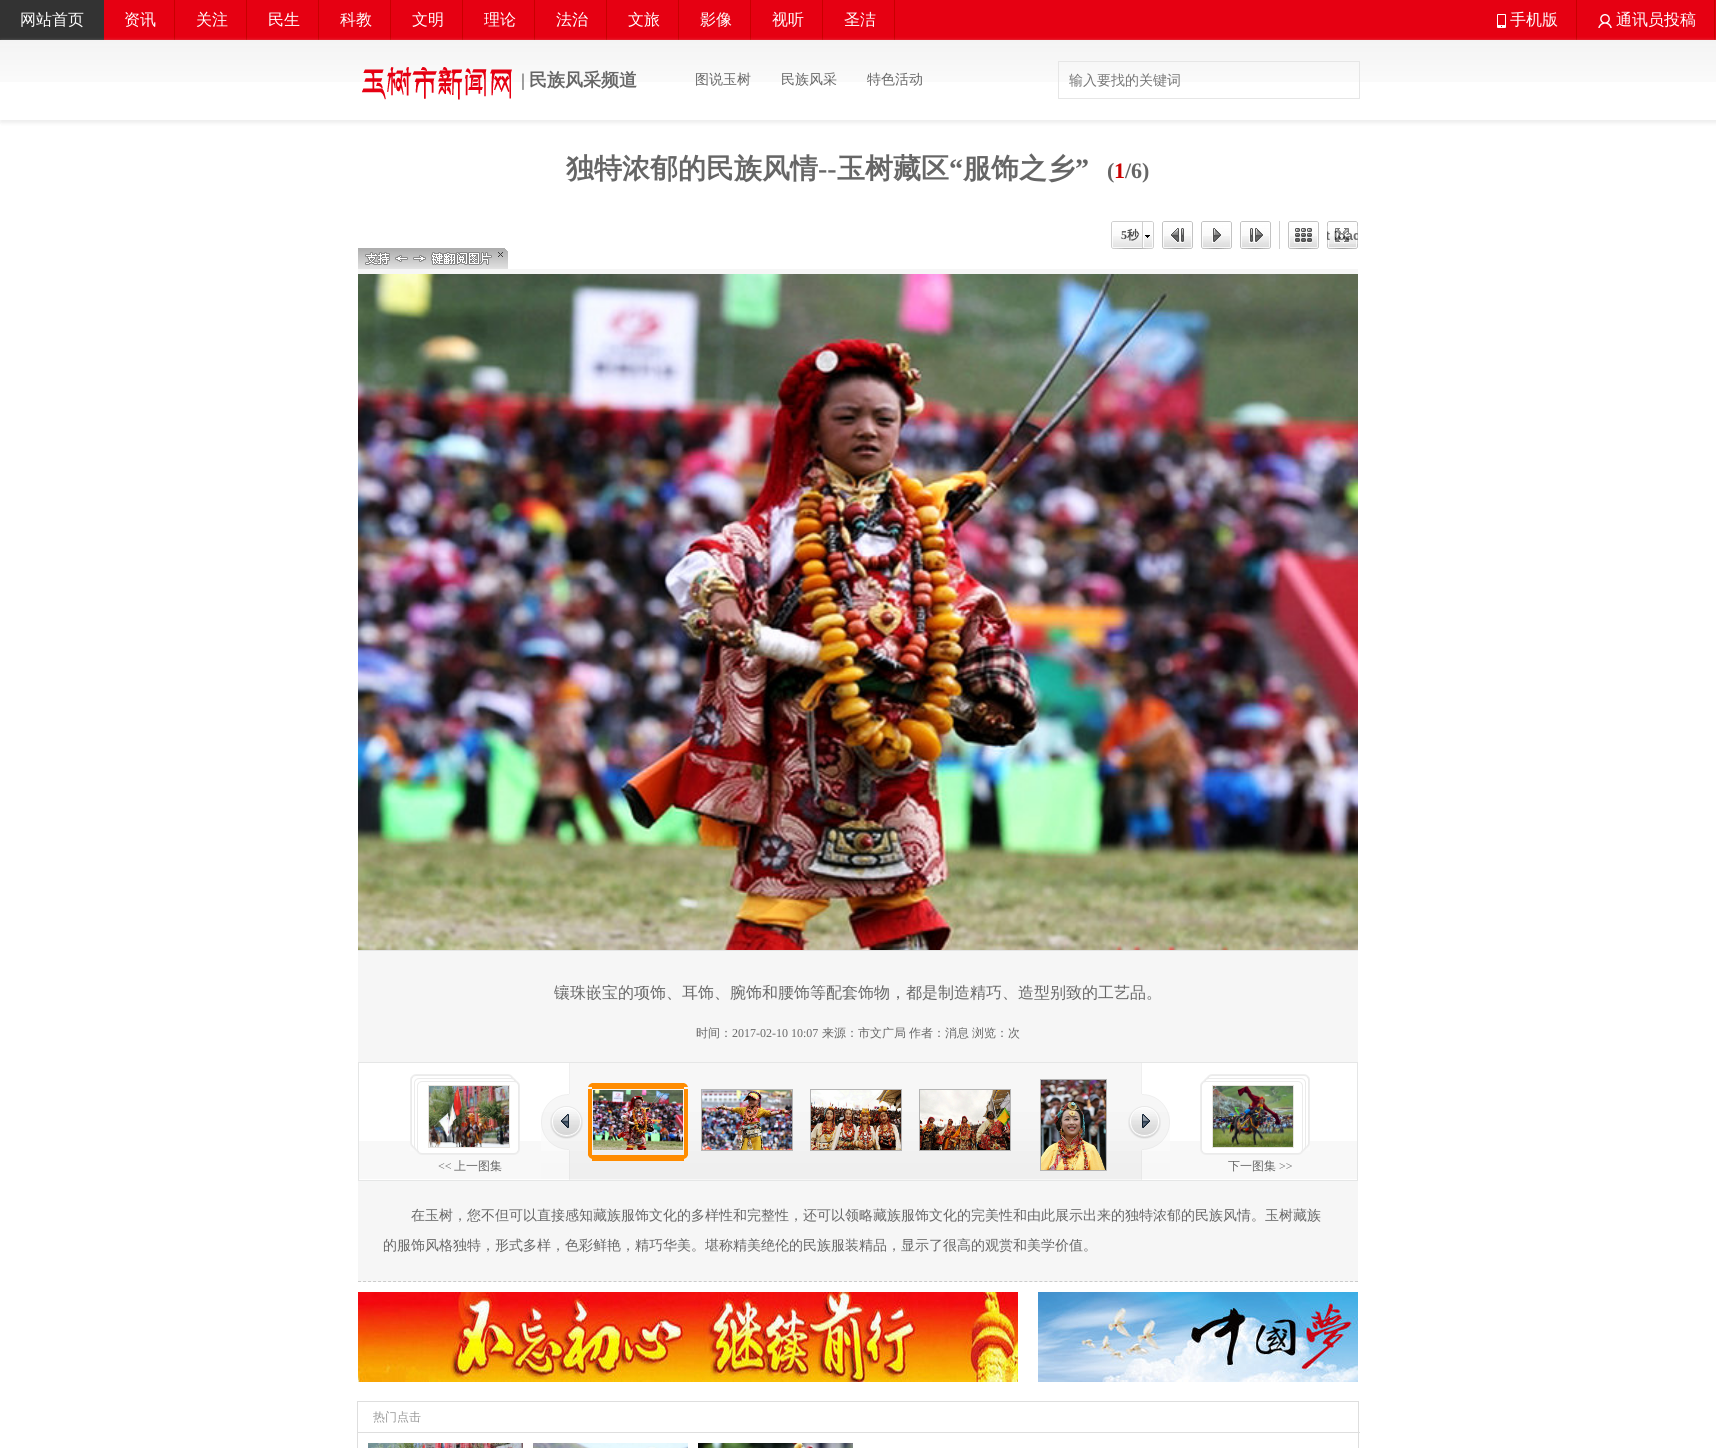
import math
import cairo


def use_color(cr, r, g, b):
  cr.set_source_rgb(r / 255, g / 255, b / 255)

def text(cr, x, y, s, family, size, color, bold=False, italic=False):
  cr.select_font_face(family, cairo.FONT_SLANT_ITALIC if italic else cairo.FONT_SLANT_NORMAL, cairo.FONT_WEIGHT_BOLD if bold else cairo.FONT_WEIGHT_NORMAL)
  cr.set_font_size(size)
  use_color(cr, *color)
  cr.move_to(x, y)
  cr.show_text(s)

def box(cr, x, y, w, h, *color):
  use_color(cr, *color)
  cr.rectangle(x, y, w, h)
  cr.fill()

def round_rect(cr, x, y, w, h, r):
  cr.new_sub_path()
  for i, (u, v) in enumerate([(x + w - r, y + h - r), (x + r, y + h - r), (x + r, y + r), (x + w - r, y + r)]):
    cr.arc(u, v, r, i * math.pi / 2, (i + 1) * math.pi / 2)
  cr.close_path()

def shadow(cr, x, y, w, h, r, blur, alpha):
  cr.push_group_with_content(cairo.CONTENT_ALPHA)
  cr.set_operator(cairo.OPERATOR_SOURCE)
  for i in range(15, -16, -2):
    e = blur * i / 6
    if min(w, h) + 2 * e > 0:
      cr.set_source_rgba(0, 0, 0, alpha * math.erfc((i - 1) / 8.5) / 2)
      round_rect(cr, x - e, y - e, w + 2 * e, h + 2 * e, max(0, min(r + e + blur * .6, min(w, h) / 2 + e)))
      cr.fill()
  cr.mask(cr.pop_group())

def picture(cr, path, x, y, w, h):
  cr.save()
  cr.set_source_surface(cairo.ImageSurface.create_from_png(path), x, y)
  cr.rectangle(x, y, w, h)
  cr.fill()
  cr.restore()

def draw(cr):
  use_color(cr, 255, 255, 255)
  cr.paint()
  use_color(cr, 238, 238, 238)
  shadow(cr, 1, 2, 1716, 120, 0, 2, 1)
  box(cr, 0, 82, 1716, 38, 255, 255, 255)
  box(cr, 104, 0, 1612, 40, 230, 0, 18)
  box(cr, 0, 0, 104, 40, 51, 51, 51)
  box(cr, 174, 0, 1, 40, 200, 0, 0)
  box(cr, 246, 0, 1, 40, 200, 0, 0)
  box(cr, 318, 0, 1, 40, 200, 0, 0)
  box(cr, 390, 0, 1, 40, 200, 0, 0)
  box(cr, 462, 0, 1, 40, 200, 0, 0)
  box(cr, 534, 0, 1, 40, 200, 0, 0)
  box(cr, 606, 0, 1, 40, 200, 0, 0)
  box(cr, 678, 0, 1, 40, 200, 0, 0)
  box(cr, 750, 0, 1, 40, 200, 0, 0)
  box(cr, 822, 0, 1, 40, 200, 0, 0)
  box(cr, 894, 0, 1, 40, 200, 0, 0)
  box(cr, 1576, 0, 1, 40, 200, 0, 0)
  picture(cr, "img_01.png", 1497, 14, 9, 14)
  box(cr, 1714, 0, 1, 40, 200, 0, 0)
  picture(cr, "img_02.png", 1598, 14, 14, 14)
  cr.save()
  cr.set_fill_rule(cairo.FILL_RULE_EVEN_ODD)
  cr.new_path()
  cr.move_to(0, 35)
  cr.line_to(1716, 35)
  cr.line_to(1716, 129)
  cr.line_to(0, 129)
  cr.close_path()
  cr.move_to(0, 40)
  cr.line_to(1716, 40)
  cr.line_to(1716, 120)
  cr.line_to(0, 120)
  cr.close_path()
  cr.clip()
  use_color(cr, 238, 238, 238)
  shadow(cr, 1, 42, 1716, 80, 0, 2, 1)
  cr.restore()
  picture(cr, "img_03.png", 0, 40, 1716, 42)
  picture(cr, "img_04.png", 362, 67, 150, 33)
  cr.rectangle(1058.5, 61.5, 301, 37)
  use_color(cr, 230, 230, 230)
  cr.set_line_width(1)
  cr.stroke()
  picture(cr, "img_05.png", 1111, 221, 43, 28)
  picture(cr, "img_06.png", 1162, 221, 31, 28)
  picture(cr, "img_07.png", 1201, 221, 31, 28)
  picture(cr, "img_08.png", 1240, 221, 31, 28)
  box(cr, 1279, 221, 1, 28, 209, 209, 209)
  picture(cr, "img_09.png", 1288, 221, 31, 28)
  picture(cr, "img_10.png", 1327, 221, 31, 28)
  picture(cr, "img_11.png", 1327, 226, 31, 18)
  picture(cr, "img_12.png", 358, 248, 150, 21)
  box(cr, 358, 269, 1000, 793, 246, 246, 246)
  box(cr, 358, 950, 1000, 1, 229, 230, 230)
  picture(cr, "img_13.png", 358, 274, 1000, 676)
  box(cr, 359, 1141, 998, 38, 248, 248, 248)
  cr.rectangle(358.5, 1062.5, 999, 118)
  use_color(cr, 229, 230, 230)
  cr.stroke()
  picture(cr, "img_14.png", 410, 1074, 110, 81)
  cr.rectangle(428.5, 1085.5, 81, 62)
  use_color(cr, 231, 228, 223)
  cr.stroke()
  picture(cr, "img_15.png", 429, 1086, 80, 61)
  picture(cr, "img_16.png", 541, 1063, 42, 117)
  picture(cr, "img_17.png", 583, 1063, 545, 117)
  picture(cr, "img_18.png", 588, 1083, 4, 4)
  box(cr, 592, 1083, 92, 6, 255, 140, 0)
  picture(cr, "img_19.png", 684, 1083, 4, 4)
  box(cr, 588, 1089, 4, 66, 255, 140, 0)
  picture(cr, "img_20.png", 593, 1090, 90, 60)
  box(cr, 684, 1089, 4, 66, 255, 140, 0)
  picture(cr, "img_21.png", 588, 1155, 4, 4)
  box(cr, 592, 1155, 92, 6, 255, 140, 0)
  picture(cr, "img_22.png", 684, 1155, 4, 4)
  cr.rectangle(701.5, 1089.5, 91, 61)
  use_color(cr, 180, 180, 180)
  cr.stroke()
  picture(cr, "img_23.png", 702, 1090, 90, 60)
  cr.rectangle(810.5, 1089.5, 91, 61)
  cr.stroke()
  picture(cr, "img_24.png", 811, 1090, 90, 60)
  cr.rectangle(919.5, 1089.5, 91, 61)
  cr.stroke()
  picture(cr, "img_25.png", 920, 1090, 90, 60)
  cr.rectangle(1040.5, 1079.5, 66, 91)
  cr.stroke()
  picture(cr, "img_26.png", 1041, 1080, 65, 90)
  picture(cr, "img_27.png", 1128, 1063, 42, 117)
  picture(cr, "img_28.png", 1200, 1074, 110, 81)
  cr.rectangle(1212.5, 1085.5, 81, 62)
  use_color(cr, 231, 228, 223)
  cr.stroke()
  picture(cr, "img_29.png", 1213, 1086, 80, 61)
  box(cr, 358, 1181, 1000, 101, 246, 246, 246)
  cr.new_path()
  cr.move_to(358, 1281.5)
  cr.line_to(1358, 1281.5)
  use_color(cr, 204, 204, 204)
  cr.set_dash([3, 2.01])
  cr.stroke()
  picture(cr, "img_30.png", 358, 1292, 660, 90)
  picture(cr, "img_31.png", 1038, 1292, 320, 90)
  cr.rectangle(357.5, 1401.5, 1001, 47)
  use_color(cr, 222, 222, 222)
  cr.set_dash([])
  cr.stroke()
  box(cr, 358, 1432, 1002, 1, 222, 222, 222)
  picture(cr, "img_32.png", 368, 1443, 155, 5)
  picture(cr, "img_33.png", 533, 1443, 155, 5)
  picture(cr, "img_34.png", 698, 1443, 155, 5)
  text(cr, 20, 25, "网站首页", "WenQuanYi Zen Hei Medium", 16, (255, 255, 255))
  text(cr, 124, 25, "资讯", "WenQuanYi Zen Hei Medium", 16, (255, 255, 255))
  text(cr, 196, 25, "关注", "WenQuanYi Zen Hei Medium", 16, (255, 255, 255))
  text(cr, 268, 25, "民生", "WenQuanYi Zen Hei Medium", 16, (255, 255, 255))
  text(cr, 340, 25, "科教", "WenQuanYi Zen Hei Medium", 16, (255, 255, 255))
  text(cr, 412, 25, "文明", "WenQuanYi Zen Hei Medium", 16, (255, 255, 255))
  text(cr, 484, 25, "理论", "WenQuanYi Zen Hei Medium", 16, (255, 255, 255))
  text(cr, 556, 25, "法治", "WenQuanYi Zen Hei Medium", 16, (255, 255, 255))
  text(cr, 628, 25, "文旅", "WenQuanYi Zen Hei Medium", 16, (255, 255, 255))
  text(cr, 700, 25, "影像", "WenQuanYi Zen Hei Medium", 16, (255, 255, 255))
  text(cr, 772, 25, "视听", "WenQuanYi Zen Hei Medium", 16, (255, 255, 255))
  text(cr, 844, 25, "圣洁", "WenQuanYi Zen Hei Medium", 16, (255, 255, 255))
  text(cr, 1510, 25, "手机版", "WenQuanYi Zen Hei Medium", 16, (255, 255, 255))
  text(cr, 1616, 25, "通讯员投稿", "WenQuanYi Zen Hei Medium", 16, (255, 255, 255))
  text(cr, 521, 86, "|", "Liberation Serif", 18, (102, 102, 102), bold=True)
  text(cr, 529, 86, "民族风采频道", "WenQuanYi Zen Hei", 18, (102, 102, 102), bold=True)
  text(cr, 695, 84, "图说玉树", "WenQuanYi Zen Hei Medium", 14, (102, 102, 102))
  text(cr, 781, 84, "民族风采", "WenQuanYi Zen Hei Medium", 14, (102, 102, 102))
  text(cr, 867, 84, "特色活动", "WenQuanYi Zen Hei Medium", 14, (102, 102, 102))
  text(cr, 1069, 85, "输入要找的关键词", "WenQuanYi Zen Hei Medium", 14, (117, 117, 117))
  text(cr, 566, 178, "独特浓郁的民族风情", "WenQuanYi Zen Hei", 28, (102, 102, 102), bold=True)
  text(cr, 818, 178, "--", "Liberation Serif", 28, (102, 102, 102), bold=True)
  text(cr, 837, 178, "玉树藏区", "WenQuanYi Zen Hei", 28, (102, 102, 102), bold=True)
  text(cr, 949, 178, "“", "Liberation Serif", 28, (102, 102, 102), bold=True)
  text(cr, 963, 178, "服饰之乡", "WenQuanYi Zen Hei", 28, (102, 102, 102), bold=True)
  text(cr, 1075, 178, "”", "Liberation Serif", 28, (102, 102, 102), bold=True)
  text(cr, 1107, 178, "(", "Liberation Serif", 22, (102, 102, 102), bold=True)
  text(cr, 1114, 178, "1", "Liberation Serif", 22, (204, 0, 0), bold=True)
  text(cr, 1125, 178, "/6)", "Liberation Serif", 22, (102, 102, 102), bold=True)
  text(cr, 1121, 239, "5", "Liberation Serif", 12, (76, 76, 76), bold=True)
  text(cr, 1127, 239, "秒", "WenQuanYi Zen Hei", 12, (76, 76, 76), bold=True)
  text(cr, 554, 998, "镶珠嵌宝的项饰、耳饰、腕饰和腰饰等配套饰物，都是制造精巧、造型别致的工艺品。", "WenQuanYi Zen Hei Medium", 16, (102, 102, 102))
  text(cr, 696, 1037, "时间：", "WenQuanYi Zen Hei Medium", 12, (102, 102, 102))
  text(cr, 732, 1037, "2017-02-10 10:07", "Liberation Serif", 12, (102, 102, 102))
  text(cr, 822, 1037, "来源：市文广局", "WenQuanYi Zen Hei Medium", 12, (102, 102, 102))
  text(cr, 909, 1037, "作者：消息", "WenQuanYi Zen Hei Medium", 12, (102, 102, 102))
  text(cr, 972, 1037, "浏览：次", "WenQuanYi Zen Hei Medium", 12, (102, 102, 102))
  text(cr, 438, 1170, "<<", "Liberation Serif", 12, (102, 102, 102))
  text(cr, 454, 1170, "上一图集", "WenQuanYi Zen Hei Medium", 12, (102, 102, 102))
  text(cr, 1228, 1170, "下一图集", "WenQuanYi Zen Hei Medium", 12, (102, 102, 102))
  text(cr, 1279, 1170, ">>", "Liberation Serif", 12, (102, 102, 102))
  text(cr, 411, 1220, "在玉树，您不但可以直接感知藏族服饰文化的多样性和完整性，还可以领略藏族服饰文化的完美性和由此展示出来的独特浓郁的民族风情。玉树藏族", "WenQuanYi Zen Hei Medium", 14, (102, 102, 102))
  text(cr, 383, 1250, "的服饰风格独特，形式多样，色彩鲜艳，精巧华美。堪称精美绝伦的民族服装精品，显示了很高的观赏和美学价值。", "WenQuanYi Zen Hei Medium", 14, (102, 102, 102))
  text(cr, 373, 1421, "热门点击", "WenQuanYi Zen Hei Medium", 12, (153, 153, 153))


surface = cairo.ImageSurface(cairo.FORMAT_RGB24, 1716, 1448)
cr = cairo.Context(surface)
options = cairo.FontOptions()
options.set_hint_metrics(cairo.HINT_METRICS_OFF)
options.set_hint_style(cairo.HINT_STYLE_NONE)
cr.set_font_options(options)
cr.set_miter_limit(4)
draw(cr)
surface.write_to_png("out.png")
